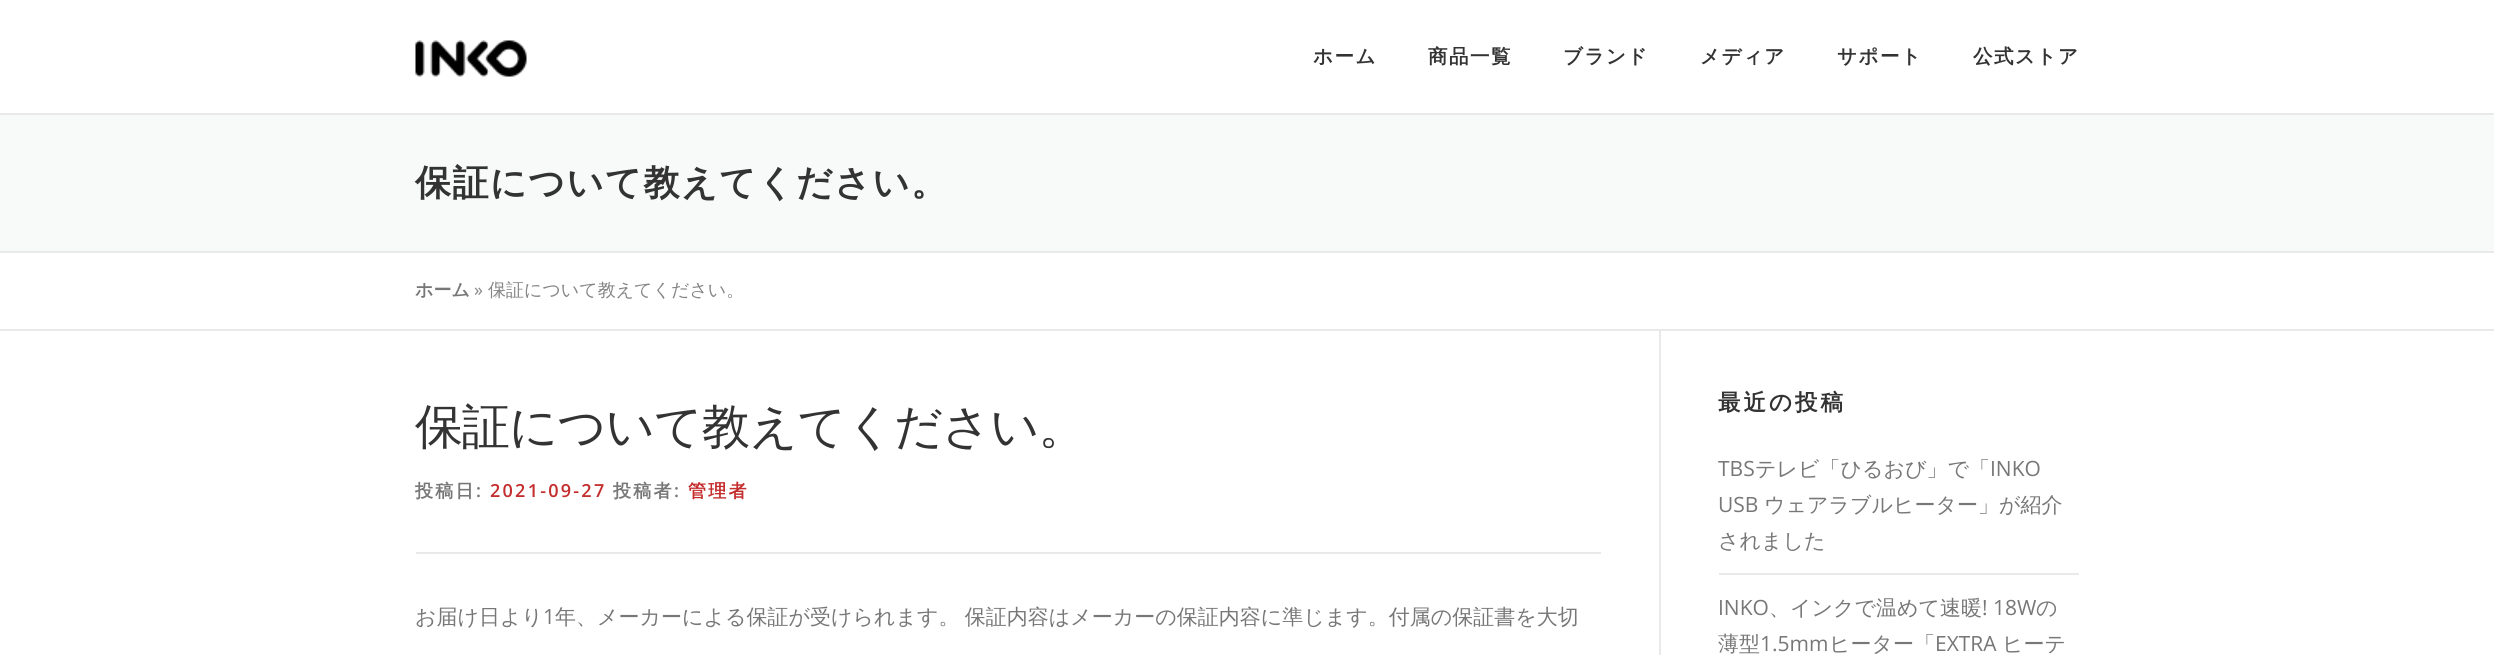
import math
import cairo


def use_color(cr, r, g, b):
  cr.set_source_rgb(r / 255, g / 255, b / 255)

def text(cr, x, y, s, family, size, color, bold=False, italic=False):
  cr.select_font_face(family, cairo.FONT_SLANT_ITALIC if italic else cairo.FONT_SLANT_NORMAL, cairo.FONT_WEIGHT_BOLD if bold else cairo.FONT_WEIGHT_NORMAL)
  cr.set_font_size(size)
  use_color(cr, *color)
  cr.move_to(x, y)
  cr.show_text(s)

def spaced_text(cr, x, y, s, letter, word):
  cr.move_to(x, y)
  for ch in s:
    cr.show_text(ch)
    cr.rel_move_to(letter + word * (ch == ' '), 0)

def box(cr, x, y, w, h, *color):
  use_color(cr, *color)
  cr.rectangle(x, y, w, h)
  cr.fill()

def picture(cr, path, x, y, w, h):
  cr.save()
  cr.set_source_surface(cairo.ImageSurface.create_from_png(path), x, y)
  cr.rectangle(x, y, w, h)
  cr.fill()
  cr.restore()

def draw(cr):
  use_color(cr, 255, 255, 255)
  cr.paint()
  picture(cr, "img_01.png", 415, 40, 112, 37)
  box(cr, 0, 115, 2494, 136, 248, 249, 249)
  box(cr, 0, 113, 2494, 2, 233, 233, 233)
  box(cr, 0, 251, 2494, 2, 233, 233, 233)
  box(cr, 0, 329, 2494, 2, 233, 233, 233)
  use_color(cr, 204, 204, 204)
  cr.new_path()
  cr.move_to(495, 298.5)
  cr.line_to(495, 280.5)
  cr.line_to(504, 289.5)
  cr.close_path()
  cr.fill()
  use_color(cr, 255, 255, 255)
  cr.new_path()
  cr.move_to(495, 297)
  cr.line_to(495, 282)
  cr.line_to(502.5, 289.5)
  cr.close_path()
  cr.fill()
  box(cr, 1659, 330, 2, 325, 233, 233, 233)
  box(cr, 416, 552, 1185, 2, 233, 233, 233)
  box(cr, 1719, 573, 360, 2, 233, 233, 233)
  cr.select_font_face("WenQuanYi Zen Hei", cairo.FONT_SLANT_NORMAL, cairo.FONT_WEIGHT_BOLD)
  cr.set_font_size(19.5)
  use_color(cr, 51, 51, 51)
  spaced_text(cr, 1313, 63, "ホーム", 1.5, 0)
  spaced_text(cr, 1428, 63, "商品一覧", 1.5, 0)
  spaced_text(cr, 1563, 63, "ブランド", 1.5, 0)
  spaced_text(cr, 1700, 63, "メディア", 1.5, 0)
  spaced_text(cr, 1837, 63, "サポート", 1.5, 0)
  spaced_text(cr, 1973, 63, "公式ストア", 1.5, 0)
  cr.set_font_size(36)
  spaced_text(cr, 415, 195, "保証について教えてください。", 1.5, 0)
  text(cr, 415, 296, "ホーム", "WenQuanYi Zen Hei", 18, (119, 119, 119), bold=True)
  text(cr, 474, 296, "»", "Open Sans", 18, (133, 133, 133))
  text(cr, 488, 296, "保証について教えてください。", "WenQuanYi Zen Hei Medium", 18, (133, 133, 133))
  cr.set_font_size(48)
  use_color(cr, 51, 51, 51)
  spaced_text(cr, 415, 443, "保証について教えてください。", -0.9, 0)
  cr.select_font_face("WenQuanYi Zen Hei", cairo.FONT_SLANT_NORMAL, cairo.FONT_WEIGHT_BOLD)
  cr.set_font_size(18)
  use_color(cr, 119, 119, 119)
  spaced_text(cr, 415, 497, "投稿日", 2.25, 0)
  cr.select_font_face("Open Sans SemiBold")
  spaced_text(cr, 476, 497, ":", 2.25, 0)
  use_color(cr, 196, 45, 45)
  spaced_text(cr, 490, 497, "2021-09-27", 2.25, 0)
  cr.select_font_face("WenQuanYi Zen Hei", cairo.FONT_SLANT_NORMAL, cairo.FONT_WEIGHT_BOLD)
  use_color(cr, 119, 119, 119)
  spaced_text(cr, 613, 497, "投稿者", 2.25, 0)
  cr.select_font_face("Open Sans SemiBold")
  spaced_text(cr, 674, 497, ":", 2.25, 0)
  cr.select_font_face("WenQuanYi Zen Hei", cairo.FONT_SLANT_NORMAL, cairo.FONT_WEIGHT_BOLD)
  use_color(cr, 196, 45, 45)
  spaced_text(cr, 688, 497, "管理者", 2.25, 0)
  text(cr, 415, 624, "お届け日より", "WenQuanYi Zen Hei Medium", 21, (119, 119, 119))
  text(cr, 543, 624, "1", "Open Sans", 21, (119, 119, 119))
  cr.select_font_face("WenQuanYi Zen Hei Medium")
  spaced_text(cr, 555, 624, "年、メーカーによる保証が受けられます。 保証内容はメーカーの保証内容に準じます。付属の保証書を大切", 0, -1)
  cr.select_font_face("WenQuanYi Zen Hei", cairo.FONT_SLANT_NORMAL, cairo.FONT_WEIGHT_BOLD)
  cr.set_font_size(22.5)
  use_color(cr, 51, 51, 51)
  spaced_text(cr, 1718, 410, "最近の投稿", 3, 0)
  text(cr, 1718, 476, "TBS", "Open Sans", 21, (119, 119, 119))
  text(cr, 1755, 476, "テレビ「ひるおび」で「", "WenQuanYi Zen Hei Medium", 21, (119, 119, 119))
  text(cr, 1990, 476, "INKO", "Open Sans", 21, (119, 119, 119))
  text(cr, 1718, 512, "USB", "Open Sans", 21, (119, 119, 119))
  text(cr, 1764, 512, "ウェアラブルヒーター」が紹介", "WenQuanYi Zen Hei Medium", 21, (119, 119, 119))
  text(cr, 1718, 548, "されました", "WenQuanYi Zen Hei Medium", 21, (119, 119, 119))
  text(cr, 1718, 615, "INKO", "Open Sans", 21, (119, 119, 119))
  text(cr, 1769, 615, "、インクで温めて速暖", "WenQuanYi Zen Hei Medium", 21, (119, 119, 119))
  text(cr, 1982, 615, "! 18W", "Open Sans", 21, (119, 119, 119))
  text(cr, 2036, 615, "の", "WenQuanYi Zen Hei Medium", 21, (119, 119, 119))
  text(cr, 1718, 651, "薄型", "WenQuanYi Zen Hei Medium", 21, (119, 119, 119))
  text(cr, 1760, 651, "1.5mm", "Open Sans", 21, (119, 119, 119))
  text(cr, 1829, 651, "ヒーター「", "WenQuanYi Zen Hei Medium", 21, (119, 119, 119))
  text(cr, 1935, 651, "EXTRA", "Open Sans", 21, (119, 119, 119))
  text(cr, 2002, 651, "ヒーテ", "WenQuanYi Zen Hei Medium", 21, (119, 119, 119))


surface = cairo.ImageSurface(cairo.FORMAT_RGB24, 2494, 655)
cr = cairo.Context(surface)
options = cairo.FontOptions()
options.set_hint_metrics(cairo.HINT_METRICS_OFF)
options.set_hint_style(cairo.HINT_STYLE_NONE)
cr.set_font_options(options)
cr.set_miter_limit(4)
draw(cr)
surface.write_to_png("out.png")
